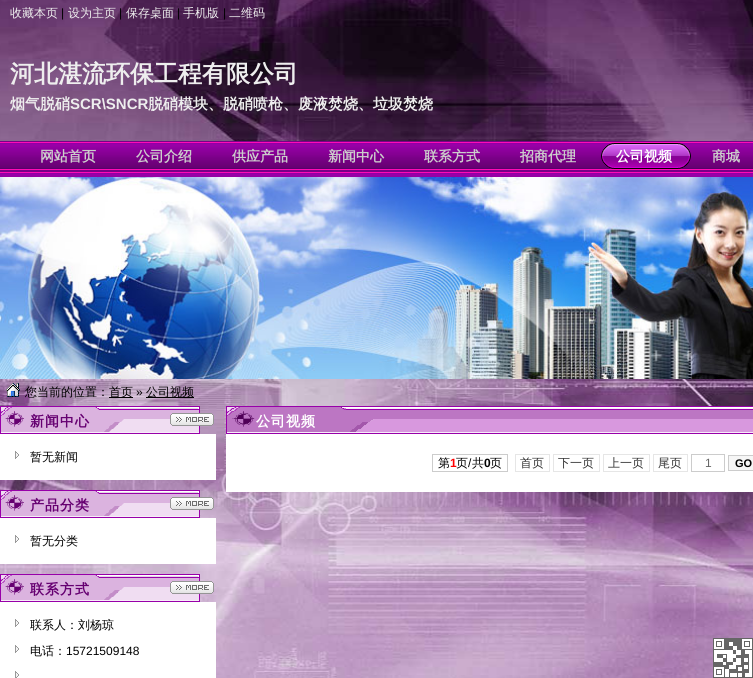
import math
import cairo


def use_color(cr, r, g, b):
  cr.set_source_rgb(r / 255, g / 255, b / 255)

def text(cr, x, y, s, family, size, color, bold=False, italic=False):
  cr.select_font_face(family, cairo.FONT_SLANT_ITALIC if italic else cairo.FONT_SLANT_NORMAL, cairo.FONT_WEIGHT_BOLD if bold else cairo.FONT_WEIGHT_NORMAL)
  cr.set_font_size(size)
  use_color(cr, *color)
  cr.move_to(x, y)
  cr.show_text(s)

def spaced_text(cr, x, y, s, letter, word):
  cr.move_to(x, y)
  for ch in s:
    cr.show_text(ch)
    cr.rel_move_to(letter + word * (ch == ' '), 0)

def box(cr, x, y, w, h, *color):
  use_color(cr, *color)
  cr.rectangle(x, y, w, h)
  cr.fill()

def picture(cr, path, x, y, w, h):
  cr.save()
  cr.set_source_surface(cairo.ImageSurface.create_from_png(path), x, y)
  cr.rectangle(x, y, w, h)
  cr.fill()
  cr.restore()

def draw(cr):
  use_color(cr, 255, 255, 255)
  cr.paint()
  picture(cr, "img_01.png", 0, 0, 753, 678)
  picture(cr, "img_02.png", 0, 141, 753, 36)
  picture(cr, "img_03.png", 601, 143, 90, 26)
  picture(cr, "img_04.png", 0, 177, 753, 202)
  picture(cr, "img_05.png", 6, 383, 14, 14)
  box(cr, 109, 397, 24, 1, 0, 0, 0)
  box(cr, 146, 397, 48, 1, 0, 0, 0)
  picture(cr, "img_06.png", 0, 406, 200, 28)
  picture(cr, "img_07.png", 170, 413, 44, 13)
  box(cr, 0, 434, 216, 46, 255, 255, 255)
  picture(cr, "img_08.png", 15, 451, 4, 8)
  picture(cr, "img_06.png", 0, 490, 200, 28)
  picture(cr, "img_09.png", 170, 497, 44, 13)
  box(cr, 0, 518, 216, 46, 255, 255, 255)
  picture(cr, "img_08.png", 15, 535, 4, 8)
  picture(cr, "img_06.png", 0, 574, 200, 28)
  picture(cr, "img_10.png", 170, 581, 44, 13)
  box(cr, 0, 602, 216, 76, 255, 255, 255)
  picture(cr, "img_08.png", 15, 619, 4, 8)
  picture(cr, "img_08.png", 15, 645, 4, 8)
  picture(cr, "img_11.png", 15, 671, 4, 7)
  picture(cr, "img_12.png", 226, 406, 527, 28)
  box(cr, 226, 434, 527, 58, 255, 255, 255)
  box(cr, 432, 471, 58, 1, 204, 204, 204)
  box(cr, 432, 454, 76, 1, 204, 204, 204)
  box(cr, 432, 454, 1, 18, 204, 204, 204)
  box(cr, 507, 454, 1, 18, 204, 204, 204)
  box(cr, 490, 471, 18, 1, 204, 204, 204)
  cr.rectangle(515.5, 454.5, 34, 17)
  use_color(cr, 230, 230, 230)
  cr.set_line_width(1)
  cr.stroke()
  cr.rectangle(553.5, 454.5, 46, 17)
  cr.stroke()
  cr.rectangle(603.5, 454.5, 46, 17)
  cr.stroke()
  cr.rectangle(653.5, 454.5, 34, 17)
  cr.stroke()
  cr.rectangle(691.5, 454.5, 33, 17)
  use_color(cr, 204, 204, 204)
  cr.stroke()
  use_color(cr, 246, 246, 246)
  cr.rectangle(728.5, 455.5, 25, 15)
  cr.fill_preserve()
  use_color(cr, 204, 204, 204)
  cr.stroke()
  picture(cr, "img_13.png", 713, 638, 40, 40)
  text(cr, 10, 17, "收藏本页", "WenQuanYi Zen Hei Medium", 12, (238, 238, 238))
  text(cr, 61, 17, "|", "Liberation Sans", 12, (0, 0, 0))
  text(cr, 68, 17, "设为主页", "WenQuanYi Zen Hei Medium", 12, (238, 238, 238))
  text(cr, 119, 17, "|", "Liberation Sans", 12, (0, 0, 0))
  text(cr, 126, 17, "保存桌面", "WenQuanYi Zen Hei Medium", 12, (238, 238, 238))
  text(cr, 177, 17, "|", "Liberation Sans", 12, (0, 0, 0))
  text(cr, 183, 17, "手机版", "WenQuanYi Zen Hei Medium", 12, (238, 238, 238))
  text(cr, 223, 17, "|", "Liberation Sans", 12, (0, 0, 0))
  text(cr, 229, 17, "二维码", "WenQuanYi Zen Hei Medium", 12, (238, 238, 238))
  text(cr, 10, 82, "河北湛流环保工程有限公司", "WenQuanYi Zen Hei", 24, (238, 238, 238), bold=True)
  text(cr, 10, 109, "烟气脱硝", "WenQuanYi Zen Hei", 15, (238, 238, 238), bold=True)
  text(cr, 70, 109, "SCR\\SNCR", "Liberation Sans", 15, (238, 238, 238), bold=True)
  text(cr, 148, 109, "脱硝模块、脱硝喷枪、废液焚烧、垃圾焚烧", "WenQuanYi Zen Hei", 15, (238, 238, 238), bold=True)
  text(cr, 40, 161, "网站首页", "WenQuanYi Zen Hei", 14, (204, 204, 204), bold=True)
  text(cr, 136, 161, "公司介绍", "WenQuanYi Zen Hei", 14, (204, 204, 204), bold=True)
  text(cr, 232, 161, "供应产品", "WenQuanYi Zen Hei", 14, (204, 204, 204), bold=True)
  text(cr, 328, 161, "新闻中心", "WenQuanYi Zen Hei", 14, (204, 204, 204), bold=True)
  text(cr, 424, 161, "联系方式", "WenQuanYi Zen Hei", 14, (204, 204, 204), bold=True)
  text(cr, 520, 161, "招商代理", "WenQuanYi Zen Hei", 14, (204, 204, 204), bold=True)
  text(cr, 616, 161, "公司视频", "WenQuanYi Zen Hei", 14, (255, 255, 255), bold=True)
  text(cr, 712, 161, "商城", "WenQuanYi Zen Hei", 14, (204, 204, 204), bold=True)
  text(cr, 25, 396, "您当前的位置：", "WenQuanYi Zen Hei Medium", 12, (0, 0, 0))
  text(cr, 109, 396, "首页", "WenQuanYi Zen Hei Medium", 12, (0, 0, 0))
  text(cr, 136, 396, "»", "Liberation Sans", 12, (0, 0, 0))
  text(cr, 146, 396, "公司视频", "WenQuanYi Zen Hei Medium", 12, (0, 0, 0))
  cr.select_font_face("WenQuanYi Zen Hei", cairo.FONT_SLANT_NORMAL, cairo.FONT_WEIGHT_BOLD)
  cr.set_font_size(14)
  use_color(cr, 102, 0, 113)
  spaced_text(cr, 30, 426, "新闻中心", 1, 0)
  text(cr, 30, 461, "暂无新闻", "WenQuanYi Zen Hei Medium", 12, (0, 0, 0))
  cr.select_font_face("WenQuanYi Zen Hei", cairo.FONT_SLANT_NORMAL, cairo.FONT_WEIGHT_BOLD)
  cr.set_font_size(14)
  use_color(cr, 102, 0, 113)
  spaced_text(cr, 30, 510, "产品分类", 1, 0)
  text(cr, 30, 545, "暂无分类", "WenQuanYi Zen Hei Medium", 12, (0, 0, 0))
  cr.select_font_face("WenQuanYi Zen Hei", cairo.FONT_SLANT_NORMAL, cairo.FONT_WEIGHT_BOLD)
  cr.set_font_size(14)
  use_color(cr, 102, 0, 113)
  spaced_text(cr, 30, 594, "联系方式", 1, 0)
  text(cr, 30, 629, "联系人：刘杨琼", "WenQuanYi Zen Hei Medium", 12, (0, 0, 0))
  text(cr, 30, 655, "电话：", "WenQuanYi Zen Hei Medium", 12, (0, 0, 0))
  text(cr, 66, 655, "15721509148", "Liberation Sans", 12, (0, 0, 0))
  cr.select_font_face("WenQuanYi Zen Hei", cairo.FONT_SLANT_NORMAL, cairo.FONT_WEIGHT_BOLD)
  cr.set_font_size(14)
  use_color(cr, 255, 255, 255)
  spaced_text(cr, 256, 426, "公司视频", 1, 0)
  text(cr, 438, 467, "第", "WenQuanYi Zen Hei Medium", 12, (0, 0, 0))
  text(cr, 450, 467, "1", "Liberation Sans", 12, (255, 0, 0), bold=True)
  text(cr, 456, 467, "页", "WenQuanYi Zen Hei Medium", 12, (0, 0, 0))
  text(cr, 468, 467, "/", "Liberation Sans", 12, (0, 0, 0))
  text(cr, 472, 467, "共", "WenQuanYi Zen Hei Medium", 12, (0, 0, 0))
  text(cr, 484, 467, "0", "Liberation Sans", 12, (0, 0, 0), bold=True)
  text(cr, 490, 467, "页", "WenQuanYi Zen Hei Medium", 12, (0, 0, 0))
  text(cr, 520, 467, "首页", "WenQuanYi Zen Hei Medium", 12, (51, 51, 51))
  text(cr, 558, 467, "下一页", "WenQuanYi Zen Hei Medium", 12, (51, 51, 51))
  text(cr, 608, 467, "上一页", "WenQuanYi Zen Hei Medium", 12, (51, 51, 51))
  text(cr, 658, 467, "尾页", "WenQuanYi Zen Hei Medium", 12, (51, 51, 51))
  text(cr, 705, 467, "1", "Liberation Sans", 12, (102, 102, 102))
  text(cr, 735, 467, "GO", "Liberation Sans", 11, (0, 0, 0), bold=True)


surface = cairo.ImageSurface(cairo.FORMAT_RGB24, 753, 678)
cr = cairo.Context(surface)
options = cairo.FontOptions()
options.set_hint_metrics(cairo.HINT_METRICS_OFF)
options.set_hint_style(cairo.HINT_STYLE_NONE)
cr.set_font_options(options)
cr.set_miter_limit(4)
draw(cr)
surface.write_to_png("out.png")
